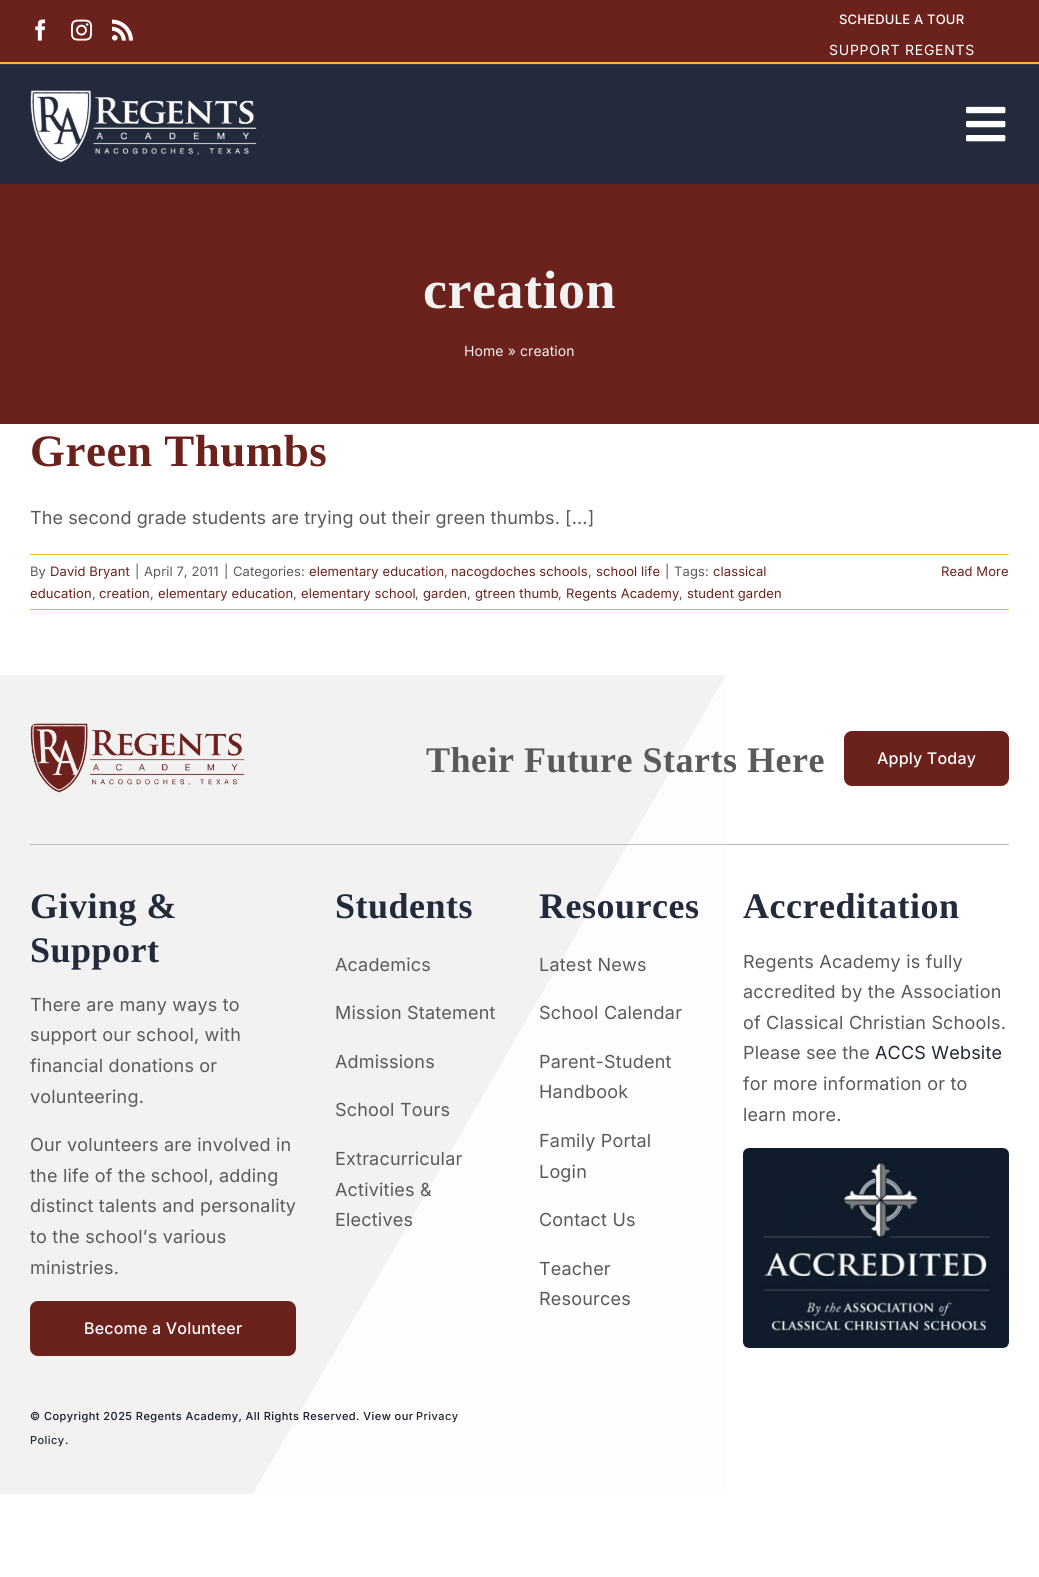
import math
import cairo


def use_color(cr, r, g, b):
  cr.set_source_rgb(r / 255, g / 255, b / 255)

def spaced_text(cr, x, y, s, letter, word):
  cr.move_to(x, y)
  for ch in s:
    cr.show_text(ch)
    cr.rel_move_to(letter + word * (ch == ' '), 0)

def box(cr, x, y, w, h, *color):
  use_color(cr, *color)
  cr.rectangle(x, y, w, h)
  cr.fill()

def round_rect(cr, x, y, w, h, r):
  cr.new_sub_path()
  for i, (u, v) in enumerate([(x + w - r, y + h - r), (x + r, y + h - r), (x + r, y + r), (x + w - r, y + r)]):
    cr.arc(u, v, r, i * math.pi / 2, (i + 1) * math.pi / 2)
  cr.close_path()

def picture(cr, path, x, y, w, h):
  cr.save()
  cr.set_source_surface(cairo.ImageSurface.create_from_png(path), x, y)
  cr.rectangle(x, y, w, h)
  cr.fill()
  cr.restore()

def draw(cr):
  use_color(cr, 255, 255, 255)
  cr.paint()
  box(cr, 0, 0, 1039, 62, 108, 34, 28)
  box(cr, 0, 62, 1039, 2, 255, 182, 33)
  picture(cr, "img_01.png", 35, 19, 11, 22)
  picture(cr, "img_02.png", 71, 19, 21, 22)
  picture(cr, "img_03.png", 112, 19, 21, 22)
  box(cr, 0, 65, 1039, 119, 34, 42, 60)
  box(cr, 0, 64, 1039, 1, 45, 53, 70)
  picture(cr, "img_04.png", 30, 90, 227, 73)
  picture(cr, "img_05.png", 966, 106, 40, 36)
  box(cr, 0, 184, 1039, 240, 108, 34, 28)
  box(cr, 30, 554, 979, 1, 255, 182, 33)
  box(cr, 30, 609, 979, 1, 255, 182, 33)
  gradient = cairo.LinearGradient(-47, 757, 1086, 1412)
  gradient.add_color_stop_rgba(0.48, 0.949, 0.949, 0.949, 1)
  gradient.add_color_stop_rgba(0.48, 0.992, 0.992, 0.992, 1)
  cr.set_source(gradient)
  cr.rectangle(0, 675, 726, 819)
  cr.fill()
  picture(cr, "img_06.png", 30, 723, 215, 70)
  use_color(cr, 108, 34, 28)
  round_rect(cr, 844, 731, 165, 55, 8)
  cr.fill()
  box(cr, 30, 844, 979, 1, 189, 187, 187)
  use_color(cr, 108, 34, 28)
  round_rect(cr, 30, 1301, 266, 55, 8)
  cr.fill()
  picture(cr, "img_07.png", 743, 1148, 266, 200)
  cr.select_font_face("Inter Medium")
  cr.set_font_size(13)
  use_color(cr, 255, 255, 255)
  spaced_text(cr, 839, 24, "SCHEDULE A TOUR", 0.2, 0)
  cr.select_font_face("Inter")
  cr.set_font_size(14)
  spaced_text(cr, 829, 55, "SUPPORT REGENTS", 0.75, 0)
  cr.select_font_face("Liberation Serif", cairo.FONT_SLANT_NORMAL, cairo.FONT_WEIGHT_BOLD)
  cr.set_font_size(54)
  use_color(cr, 242, 242, 242)
  spaced_text(cr, 423, 308, "creation", 0.5, 0)
  cr.select_font_face("Inter")
  cr.set_font_size(14)
  spaced_text(cr, 464, 356, "Home » creation", 0.1, 0)
  cr.select_font_face("Liberation Serif", cairo.FONT_SLANT_NORMAL, cairo.FONT_WEIGHT_BOLD)
  cr.set_font_size(45)
  use_color(cr, 108, 34, 28)
  spaced_text(cr, 30, 466, "Green Thumbs", 0.5, 0)
  cr.select_font_face("Inter")
  cr.set_font_size(18)
  use_color(cr, 90, 90, 90)
  spaced_text(cr, 30, 524, "The second grade students are trying out their green thumbs. [...]", 0.1, 0)
  cr.set_font_size(13)
  spaced_text(cr, 30, 576, "By", 0.1, 0)
  use_color(cr, 108, 34, 28)
  spaced_text(cr, 50, 576, "David Bryant", 0.1, 0)
  use_color(cr, 90, 90, 90)
  spaced_text(cr, 135, 576, "|", 0.1, 0)
  spaced_text(cr, 144, 576, "April 7, 2011", 0.1, 0)
  spaced_text(cr, 224, 576, "|", 0.1, 0)
  spaced_text(cr, 233, 576, "Categories:", 0.1, 0)
  use_color(cr, 108, 34, 28)
  spaced_text(cr, 309, 576, "elementary education", 0.1, 0)
  use_color(cr, 90, 90, 90)
  spaced_text(cr, 444, 576, ",", 0.1, 0)
  use_color(cr, 108, 34, 28)
  spaced_text(cr, 451, 576, "nacogdoches schools", 0.1, 0)
  use_color(cr, 90, 90, 90)
  spaced_text(cr, 588, 576, ",", 0.1, 0)
  use_color(cr, 108, 34, 28)
  spaced_text(cr, 596, 576, "school life", 0.1, 0)
  use_color(cr, 90, 90, 90)
  spaced_text(cr, 665, 576, "|", 0.1, 0)
  spaced_text(cr, 674, 576, "Tags:", 0.1, 0)
  use_color(cr, 108, 34, 28)
  spaced_text(cr, 713, 576, "classical", 0.1, 0)
  spaced_text(cr, 30, 598, "education", 0.1, 0)
  use_color(cr, 90, 90, 90)
  spaced_text(cr, 92, 598, ",", 0.1, 0)
  use_color(cr, 108, 34, 28)
  spaced_text(cr, 99, 598, "creation", 0.1, 0)
  use_color(cr, 90, 90, 90)
  spaced_text(cr, 150, 598, ",", 0.1, 0)
  use_color(cr, 108, 34, 28)
  spaced_text(cr, 158, 598, "elementary education", 0.1, 0)
  use_color(cr, 90, 90, 90)
  spaced_text(cr, 293, 598, ",", 0.1, 0)
  use_color(cr, 108, 34, 28)
  spaced_text(cr, 301, 598, "elementary school", 0.1, 0)
  use_color(cr, 90, 90, 90)
  spaced_text(cr, 415, 598, ",", 0.1, 0)
  use_color(cr, 108, 34, 28)
  spaced_text(cr, 423, 598, "garden", 0.1, 0)
  use_color(cr, 90, 90, 90)
  spaced_text(cr, 467, 598, ",", 0.1, 0)
  use_color(cr, 108, 34, 28)
  spaced_text(cr, 475, 598, "gtreen thumb", 0.1, 0)
  use_color(cr, 90, 90, 90)
  spaced_text(cr, 558, 598, ",", 0.1, 0)
  use_color(cr, 108, 34, 28)
  spaced_text(cr, 566, 598, "Regents Academy", 0.1, 0)
  use_color(cr, 90, 90, 90)
  spaced_text(cr, 679, 598, ",", 0.1, 0)
  use_color(cr, 108, 34, 28)
  spaced_text(cr, 687, 598, "student garden", 0.1, 0)
  spaced_text(cr, 941, 576, "Read More", 0.1, 0)
  cr.select_font_face("Liberation Serif", cairo.FONT_SLANT_NORMAL, cairo.FONT_WEIGHT_BOLD)
  cr.set_font_size(36)
  use_color(cr, 90, 90, 90)
  spaced_text(cr, 426, 772, "Their Future Starts Here", 0.5, 0)
  cr.select_font_face("Inter Medium")
  cr.set_font_size(16)
  use_color(cr, 255, 255, 255)
  spaced_text(cr, 877, 764, "Apply Today", 0.2, 0)
  cr.select_font_face("Liberation Serif", cairo.FONT_SLANT_NORMAL, cairo.FONT_WEIGHT_BOLD)
  cr.set_font_size(36)
  use_color(cr, 34, 42, 60)
  spaced_text(cr, 30, 918, "Giving &", 0.5, 0)
  spaced_text(cr, 30, 962, "Support", 0.5, 0)
  cr.select_font_face("Inter")
  cr.set_font_size(18)
  use_color(cr, 90, 90, 90)
  spaced_text(cr, 30, 1011, "There are many ways to", 0.2, 0)
  spaced_text(cr, 30, 1041, "support our school, with", 0.2, 0)
  spaced_text(cr, 30, 1072, "financial donations or", 0.2, 0)
  spaced_text(cr, 30, 1103, "volunteering.", 0.2, 0)
  spaced_text(cr, 30, 1151, "Our volunteers are involved in", 0.2, 0)
  spaced_text(cr, 30, 1182, "the life of the school, adding", 0.2, 0)
  spaced_text(cr, 30, 1212, "distinct talents and personality", 0.2, 0)
  spaced_text(cr, 30, 1243, "to the school’s various", 0.2, 0)
  spaced_text(cr, 30, 1274, "ministries.", 0.2, 0)
  cr.select_font_face("Inter Medium")
  cr.set_font_size(16)
  use_color(cr, 255, 255, 255)
  spaced_text(cr, 84, 1334, "Become a Volunteer", 0.2, 0)
  cr.select_font_face("Liberation Serif", cairo.FONT_SLANT_NORMAL, cairo.FONT_WEIGHT_BOLD)
  cr.set_font_size(36)
  use_color(cr, 34, 42, 60)
  spaced_text(cr, 335, 918, "Students", 0.5, 0)
  cr.select_font_face("Inter")
  cr.set_font_size(18)
  use_color(cr, 90, 90, 90)
  spaced_text(cr, 335, 971, "Academics", 0.2, 0)
  spaced_text(cr, 335, 1019, "Mission Statement", 0.2, 0)
  spaced_text(cr, 335, 1068, "Admissions", 0.2, 0)
  spaced_text(cr, 335, 1116, "School Tours", 0.2, 0)
  spaced_text(cr, 335, 1165, "Extracurricular", 0.2, 0)
  spaced_text(cr, 335, 1196, "Activities &", 0.2, 0)
  spaced_text(cr, 335, 1226, "Electives", 0.2, 0)
  cr.select_font_face("Liberation Serif", cairo.FONT_SLANT_NORMAL, cairo.FONT_WEIGHT_BOLD)
  cr.set_font_size(36)
  use_color(cr, 34, 42, 60)
  spaced_text(cr, 539, 918, "Resources", 0.5, 0)
  cr.select_font_face("Inter")
  cr.set_font_size(18)
  use_color(cr, 90, 90, 90)
  spaced_text(cr, 539, 971, "Latest News", 0.2, 0)
  spaced_text(cr, 539, 1019, "School Calendar", 0.2, 0)
  spaced_text(cr, 539, 1068, "Parent-Student", 0.2, 0)
  spaced_text(cr, 539, 1098, "Handbook", 0.2, 0)
  spaced_text(cr, 539, 1147, "Family Portal", 0.2, 0)
  spaced_text(cr, 539, 1178, "Login", 0.2, 0)
  spaced_text(cr, 539, 1226, "Contact Us", 0.2, 0)
  spaced_text(cr, 539, 1275, "Teacher", 0.2, 0)
  spaced_text(cr, 539, 1305, "Resources", 0.2, 0)
  cr.select_font_face("Liberation Serif", cairo.FONT_SLANT_NORMAL, cairo.FONT_WEIGHT_BOLD)
  cr.set_font_size(36)
  use_color(cr, 34, 42, 60)
  spaced_text(cr, 743, 918, "Accreditation", 0.5, 0)
  cr.select_font_face("Inter")
  cr.set_font_size(18)
  use_color(cr, 90, 90, 90)
  spaced_text(cr, 743, 968, "Regents Academy is fully", 0.2, 0)
  spaced_text(cr, 743, 998, "accredited by the Association", 0.2, 0)
  spaced_text(cr, 743, 1029, "of Classical Christian Schools.", 0.2, 0)
  spaced_text(cr, 743, 1059, "Please see the", 0.2, 0)
  use_color(cr, 33, 41, 52)
  spaced_text(cr, 875, 1059, "ACCS Website", 0.2, 0)
  use_color(cr, 90, 90, 90)
  spaced_text(cr, 743, 1090, "for more information or to", 0.2, 0)
  spaced_text(cr, 743, 1121, "learn more.", 0.2, 0)
  cr.select_font_face("Inter Medium")
  cr.set_font_size(11)
  use_color(cr, 20, 25, 43)
  spaced_text(cr, 30, 1420, "© Copyright 2025 Regents Academy, All Rights Reserved. View our", 0.45, 0)
  use_color(cr, 33, 41, 52)
  spaced_text(cr, 416, 1420, "Privacy", 0.45, 0)
  spaced_text(cr, 30, 1444, "Policy", 0.45, 0)
  use_color(cr, 20, 25, 43)
  spaced_text(cr, 65, 1444, ".", 0.45, 0)


surface = cairo.ImageSurface(cairo.FORMAT_RGB24, 1039, 1577)
cr = cairo.Context(surface)
options = cairo.FontOptions()
options.set_hint_metrics(cairo.HINT_METRICS_OFF)
options.set_hint_style(cairo.HINT_STYLE_NONE)
cr.set_font_options(options)
cr.set_miter_limit(4)
draw(cr)
surface.write_to_png("out.png")
